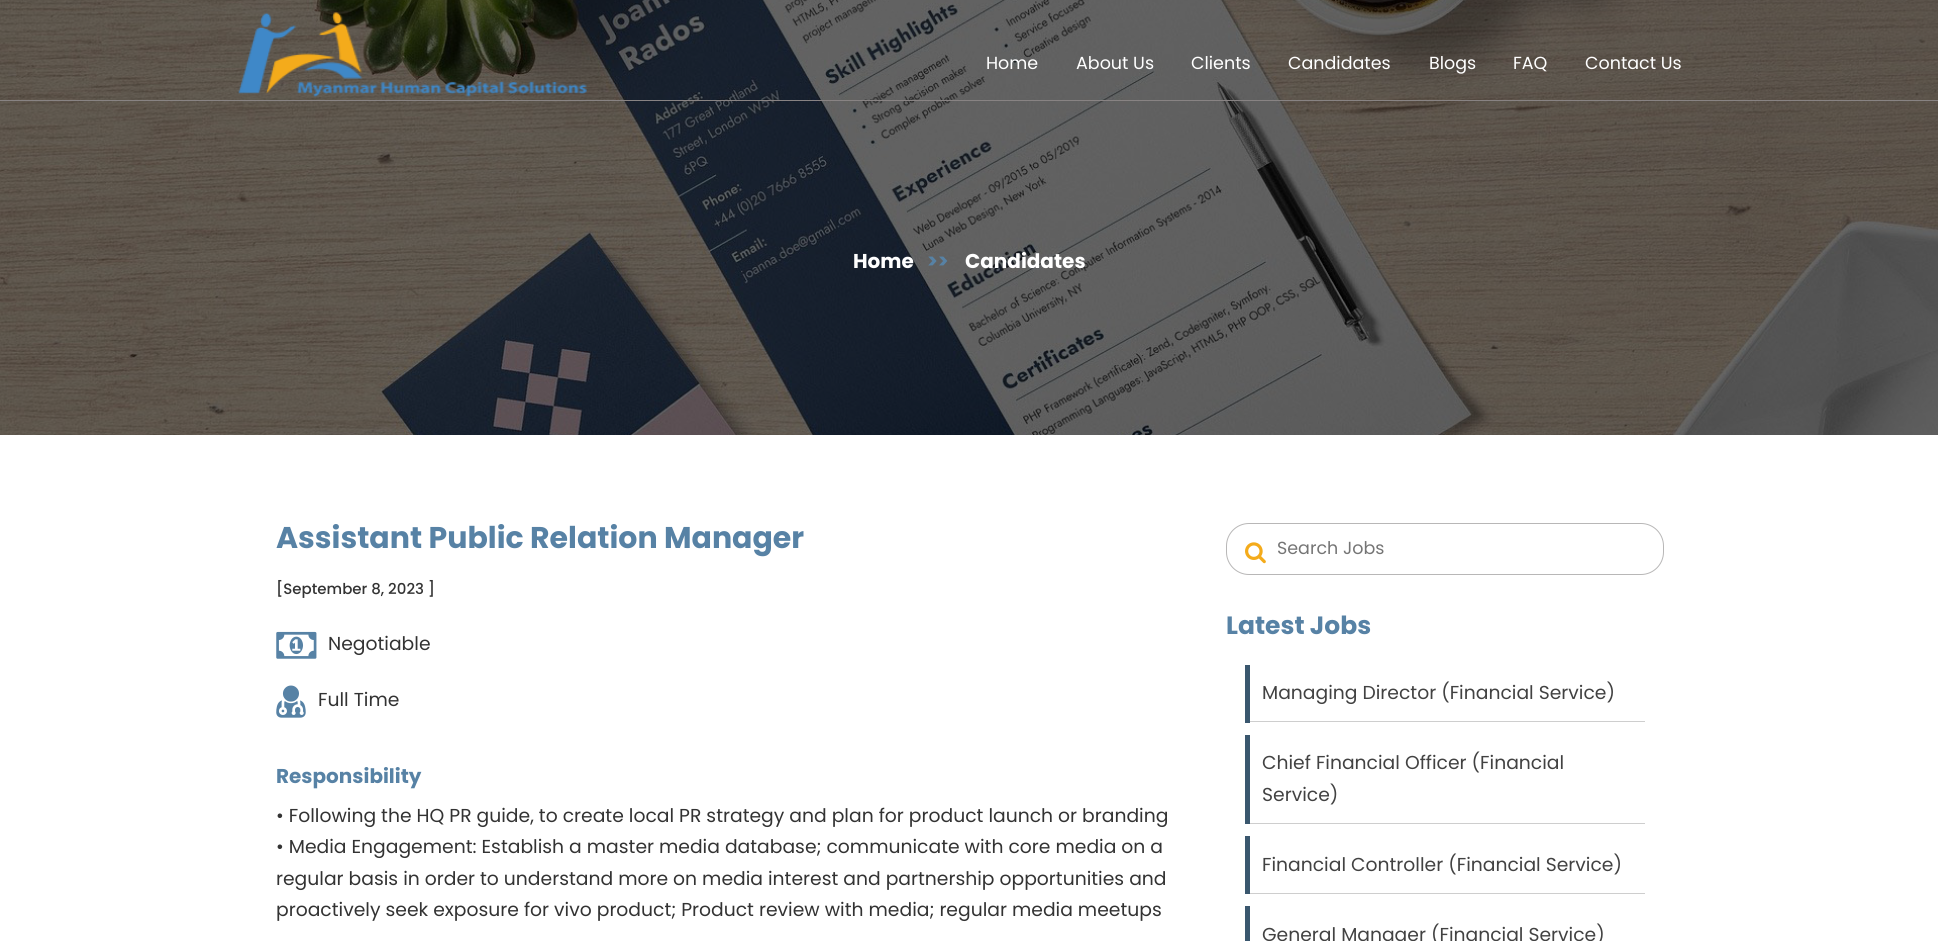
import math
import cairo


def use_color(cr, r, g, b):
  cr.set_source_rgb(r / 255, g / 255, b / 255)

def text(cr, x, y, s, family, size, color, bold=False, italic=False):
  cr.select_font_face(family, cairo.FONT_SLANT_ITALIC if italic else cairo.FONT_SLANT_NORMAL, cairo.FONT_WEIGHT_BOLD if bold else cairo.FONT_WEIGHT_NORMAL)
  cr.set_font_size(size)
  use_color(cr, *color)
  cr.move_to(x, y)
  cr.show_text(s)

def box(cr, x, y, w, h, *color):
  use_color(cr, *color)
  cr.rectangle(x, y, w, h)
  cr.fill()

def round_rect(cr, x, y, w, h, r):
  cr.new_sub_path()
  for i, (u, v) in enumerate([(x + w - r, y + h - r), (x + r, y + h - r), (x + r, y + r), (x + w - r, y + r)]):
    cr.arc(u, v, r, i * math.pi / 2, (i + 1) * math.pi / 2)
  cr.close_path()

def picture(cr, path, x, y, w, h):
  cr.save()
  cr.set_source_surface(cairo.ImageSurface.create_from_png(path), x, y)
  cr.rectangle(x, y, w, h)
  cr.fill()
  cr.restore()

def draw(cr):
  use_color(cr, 255, 255, 255)
  cr.paint()
  picture(cr, "img_02.png", 0, 0, 1938, 435)
  box(cr, 0, 100, 1938, 1, 136, 131, 131)
  picture(cr, "img_01.png", 238, 12, 349, 85)
  picture(cr, "img_03.png", 276, 631, 41, 28)
  picture(cr, "img_04.png", 276, 685, 30, 33)
  picture(cr, "img_05.png", 1245, 542, 21, 22)
  round_rect(cr, 1226.5, 523.5, 437, 51, 22.5)
  use_color(cr, 184, 183, 183)
  cr.set_line_width(1)
  cr.stroke()
  box(cr, 1245, 665, 5, 58, 58, 87, 110)
  box(cr, 1250, 721, 395, 1, 206, 206, 206)
  box(cr, 1245, 735, 5, 89, 58, 87, 110)
  box(cr, 1250, 823, 395, 1, 206, 206, 206)
  box(cr, 1245, 836, 5, 58, 58, 87, 110)
  box(cr, 1250, 893, 395, 1, 206, 206, 206)
  box(cr, 1245, 906, 5, 35, 58, 87, 110)
  text(cr, 986, 69, "Home", "Poppins", 17.5, (255, 255, 255))
  text(cr, 1076, 69, "About Us", "Poppins", 17.5, (255, 255, 255))
  text(cr, 1191, 69, "Clients", "Poppins", 17.5, (255, 255, 255))
  text(cr, 1288, 69, "Candidates", "Poppins", 17.5, (255, 255, 255))
  text(cr, 1429, 69, "Blogs", "Poppins", 17.5, (255, 255, 255))
  text(cr, 1513, 69, "FAQ", "Poppins", 17.5, (255, 255, 255))
  text(cr, 1585, 69, "Contact Us", "Poppins", 17.5, (255, 255, 255))
  text(cr, 853, 268, "Home", "Poppins", 20, (255, 255, 255), bold=True)
  text(cr, 927, 268, ">>", "Poppins", 20, (87, 130, 165), bold=True)
  text(cr, 965, 268, "Candidates", "Poppins", 20, (255, 255, 255), bold=True)
  text(cr, 276, 548, "Assistant Public Relation Manager", "Poppins", 30, (87, 130, 165), bold=True)
  text(cr, 276, 594, "[September 8, 2023 ]", "Poppins Medium", 15, (51, 51, 51))
  text(cr, 328, 650, "Negotiable", "Poppins", 18.75, (51, 51, 51))
  text(cr, 318, 706, "Full Time", "Poppins", 18.75, (51, 51, 51))
  text(cr, 276, 783, "Responsibility", "Poppins", 20, (87, 130, 165), bold=True)
  text(cr, 276, 822, "• Following the HQ PR guide, to create local PR strategy and plan for product launch or branding", "Poppins", 18.75, (51, 51, 51))
  text(cr, 276, 853, "• Media Engagement: Establish a master media database; communicate with core media on a", "Poppins", 18.75, (51, 51, 51))
  text(cr, 276, 885, "regular basis in order to understand more on media interest and partnership opportunities and", "Poppins", 18.75, (51, 51, 51))
  text(cr, 276, 916, "proactively seek exposure for vivo product; Product review with media; regular media meetups", "Poppins", 18.75, (51, 51, 51))
  text(cr, 1277, 554, "Search Jobs", "Poppins", 17.5, (117, 117, 117))
  text(cr, 1226, 634, "Latest Jobs", "Poppins", 25, (87, 130, 165), bold=True)
  text(cr, 1262, 699, "Managing Director (Financial Service)", "Poppins", 18.75, (66, 66, 66))
  text(cr, 1262, 769, "Chief Financial Officer (Financial", "Poppins", 18.75, (66, 66, 66))
  text(cr, 1262, 801, "Service)", "Poppins", 18.75, (66, 66, 66))
  text(cr, 1262, 871, "Financial Controller (Financial Service)", "Poppins", 18.75, (66, 66, 66))
  text(cr, 1262, 941, "General Manager (Financial Service)", "Poppins", 18.75, (66, 66, 66))


surface = cairo.ImageSurface(cairo.FORMAT_RGB24, 1938, 941)
cr = cairo.Context(surface)
options = cairo.FontOptions()
options.set_hint_metrics(cairo.HINT_METRICS_OFF)
options.set_hint_style(cairo.HINT_STYLE_NONE)
cr.set_font_options(options)
cr.set_miter_limit(4)
draw(cr)
surface.write_to_png("out.png")
